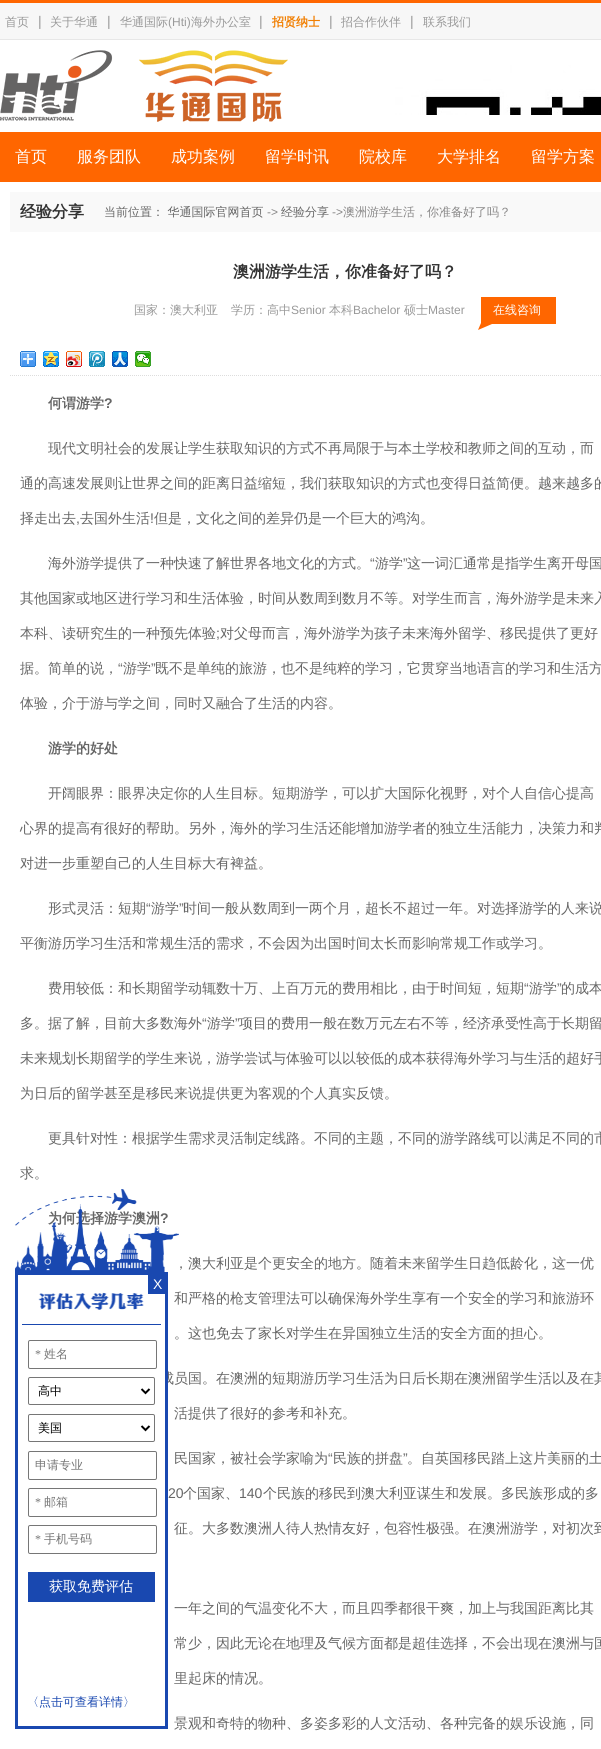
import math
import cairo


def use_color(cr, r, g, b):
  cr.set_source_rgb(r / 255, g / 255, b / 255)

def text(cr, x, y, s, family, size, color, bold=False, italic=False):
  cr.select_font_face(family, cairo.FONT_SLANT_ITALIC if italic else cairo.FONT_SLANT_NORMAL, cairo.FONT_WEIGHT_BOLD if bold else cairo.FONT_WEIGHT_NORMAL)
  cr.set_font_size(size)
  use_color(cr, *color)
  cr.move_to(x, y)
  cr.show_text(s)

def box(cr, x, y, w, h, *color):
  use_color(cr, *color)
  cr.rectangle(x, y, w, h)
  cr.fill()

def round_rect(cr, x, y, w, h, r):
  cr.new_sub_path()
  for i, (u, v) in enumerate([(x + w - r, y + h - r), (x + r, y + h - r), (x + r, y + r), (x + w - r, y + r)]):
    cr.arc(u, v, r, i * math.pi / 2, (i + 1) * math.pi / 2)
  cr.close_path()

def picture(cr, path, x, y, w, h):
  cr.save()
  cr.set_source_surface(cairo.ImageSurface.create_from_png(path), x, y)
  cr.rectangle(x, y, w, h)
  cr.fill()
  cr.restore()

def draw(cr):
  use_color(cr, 247, 247, 247)
  cr.paint()
  box(cr, 0, 0, 601, 3, 255, 102, 0)
  box(cr, 0, 39, 601, 1, 231, 231, 231)
  box(cr, 0, 40, 601, 92, 255, 255, 255)
  picture(cr, "img_01.png", 0, 50, 288, 72)
  picture(cr, "img_02.png", 395, 65, 206, 50)
  box(cr, 0, 132, 601, 50, 255, 102, 0)
  box(cr, 0, 182, 601, 1567, 255, 255, 255)
  box(cr, 10, 192, 591, 40, 249, 249, 249)
  picture(cr, "img_03.png", 478, 297, 78, 33)
  picture(cr, "img_04.png", 20, 351, 16, 16)
  picture(cr, "img_05.png", 43, 351, 16, 16)
  picture(cr, "img_06.png", 66, 351, 16, 16)
  picture(cr, "img_07.png", 89, 351, 16, 16)
  picture(cr, "img_08.png", 112, 351, 16, 16)
  picture(cr, "img_09.png", 135, 351, 16, 16)
  cr.new_path()
  cr.move_to(10, 375.5)
  cr.line_to(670, 375.5)
  use_color(cr, 221, 221, 221)
  cr.set_line_width(1)
  cr.set_dash([1, 1])
  cr.stroke()
  text(cr, 5, 26, "首页", "WenQuanYi Zen Hei Medium", 12, (153, 153, 153))
  text(cr, 38, 26, "|", "Liberation Sans", 14, (153, 153, 153))
  text(cr, 50, 26, "关于华通", "WenQuanYi Zen Hei Medium", 12, (153, 153, 153))
  text(cr, 107, 26, "|", "Liberation Sans", 14, (153, 153, 153))
  text(cr, 120, 26, "华通国际", "WenQuanYi Zen Hei Medium", 12, (153, 153, 153))
  text(cr, 168, 26, "(Hti)", "Liberation Sans", 12, (153, 153, 153))
  text(cr, 191, 26, "海外办公室", "WenQuanYi Zen Hei Medium", 12, (153, 153, 153))
  text(cr, 259, 26, "|", "Liberation Sans", 14, (153, 153, 153))
  text(cr, 272, 26, "招贤纳士", "WenQuanYi Zen Hei", 12, (241, 126, 0), bold=True)
  text(cr, 329, 26, "|", "Liberation Sans", 14, (153, 153, 153))
  text(cr, 341, 26, "招合作伙伴", "WenQuanYi Zen Hei Medium", 12, (153, 153, 153))
  text(cr, 410, 26, "|", "Liberation Sans", 14, (153, 153, 153))
  text(cr, 423, 26, "联系我们", "WenQuanYi Zen Hei Medium", 12, (153, 153, 153))
  text(cr, 15, 162, "首页", "WenQuanYi Zen Hei Medium", 16, (255, 255, 255))
  text(cr, 77, 162, "服务团队", "WenQuanYi Zen Hei Medium", 16, (255, 255, 255))
  text(cr, 171, 162, "成功案例", "WenQuanYi Zen Hei Medium", 16, (255, 255, 255))
  text(cr, 265, 162, "留学时讯", "WenQuanYi Zen Hei Medium", 16, (255, 255, 255))
  text(cr, 359, 162, "院校库", "WenQuanYi Zen Hei Medium", 16, (255, 255, 255))
  text(cr, 437, 162, "大学排名", "WenQuanYi Zen Hei Medium", 16, (255, 255, 255))
  text(cr, 531, 162, "留学方案", "WenQuanYi Zen Hei Medium", 16, (255, 255, 255))
  text(cr, 20, 217, "经验分享", "WenQuanYi Zen Hei", 16, (51, 51, 51), bold=True)
  text(cr, 104, 216, "当前位置： 华通国际官网首页", "WenQuanYi Zen Hei Medium", 12, (102, 102, 102))
  text(cr, 267, 216, "->", "Liberation Sans", 12, (137, 136, 136))
  text(cr, 281, 216, "经验分享", "WenQuanYi Zen Hei Medium", 12, (102, 102, 102))
  text(cr, 332, 216, "->", "Liberation Sans", 12, (137, 136, 136))
  text(cr, 343, 216, "澳洲游学生活，你准备好了吗？", "WenQuanYi Zen Hei Medium", 12, (137, 136, 136))
  text(cr, 233, 277, "澳洲游学生活，你准备好了吗？", "WenQuanYi Zen Hei", 16, (51, 51, 51), bold=True)
  text(cr, 134, 314, "国家：澳大利亚", "WenQuanYi Zen Hei Medium", 12, (153, 153, 153))
  text(cr, 231, 314, "学历：高中", "WenQuanYi Zen Hei Medium", 12, (153, 153, 153))
  text(cr, 291, 314, "Senior", "Liberation Sans", 12, (153, 153, 153))
  text(cr, 329, 314, "本科", "WenQuanYi Zen Hei Medium", 12, (153, 153, 153))
  text(cr, 353, 314, "Bachelor", "Liberation Sans", 12, (153, 153, 153))
  text(cr, 404, 314, "硕士", "WenQuanYi Zen Hei Medium", 12, (153, 153, 153))
  text(cr, 428, 314, "Master", "Liberation Sans", 12, (153, 153, 153))
  text(cr, 493, 314, "在线咨询", "WenQuanYi Zen Hei Medium", 12, (255, 255, 255))
  text(cr, 48, 408, "何谓游学", "WenQuanYi Zen Hei", 14, (102, 102, 102), bold=True)
  text(cr, 104, 408, "?", "Liberation Sans", 14, (102, 102, 102), bold=True)
  text(cr, 48, 453, "现代文明社会的发展让学生获取知识的方式不再局限于与本土学校和教师之间的互动，而", "WenQuanYi Zen Hei Medium", 14, (102, 102, 102))
  text(cr, 20, 488, "通的高速发展则让世界之间的距离日益缩短，我们获取知识的方式也变得日益简便。越来越多的", "WenQuanYi Zen Hei Medium", 14, (102, 102, 102))
  text(cr, 20, 523, "择走出去", "WenQuanYi Zen Hei Medium", 14, (102, 102, 102))
  text(cr, 76, 523, ",", "Liberation Sans", 14, (102, 102, 102))
  text(cr, 80, 523, "去国外生活", "WenQuanYi Zen Hei Medium", 14, (102, 102, 102))
  text(cr, 150, 523, "!", "Liberation Sans", 14, (102, 102, 102))
  text(cr, 154, 523, "但是，文化之间的差异仍是一个巨大的鸿沟。", "WenQuanYi Zen Hei Medium", 14, (102, 102, 102))
  text(cr, 48, 568, "海外游学提供了一种快速了解世界各地文化的方式。", "WenQuanYi Zen Hei Medium", 14, (102, 102, 102))
  text(cr, 370, 568, "“", "Liberation Sans", 14, (102, 102, 102))
  text(cr, 375, 568, "游学", "WenQuanYi Zen Hei Medium", 14, (102, 102, 102))
  text(cr, 403, 568, "”", "Liberation Sans", 14, (102, 102, 102))
  text(cr, 407, 568, "这一词汇通常是指学生离开母国", "WenQuanYi Zen Hei Medium", 14, (102, 102, 102))
  text(cr, 20, 603, "其他国家或地区进行学习和生活体验，时间从数周到数月不等。对学生而言，海外游学是未来入", "WenQuanYi Zen Hei Medium", 14, (102, 102, 102))
  text(cr, 20, 638, "本科、读研究生的一种预先体验", "WenQuanYi Zen Hei Medium", 14, (102, 102, 102))
  text(cr, 216, 638, ";", "Liberation Sans", 14, (102, 102, 102))
  text(cr, 220, 638, "对父母而言，海外游学为孩子未来海外留学、移民提供了更好", "WenQuanYi Zen Hei Medium", 14, (102, 102, 102))
  text(cr, 20, 673, "据。简单的说，", "WenQuanYi Zen Hei Medium", 14, (102, 102, 102))
  text(cr, 118, 673, "“", "Liberation Sans", 14, (102, 102, 102))
  text(cr, 123, 673, "游学", "WenQuanYi Zen Hei Medium", 14, (102, 102, 102))
  text(cr, 151, 673, "”", "Liberation Sans", 14, (102, 102, 102))
  text(cr, 155, 673, "既不是单纯的旅游，也不是纯粹的学习，它贯穿当地语言的学习和生活方", "WenQuanYi Zen Hei Medium", 14, (102, 102, 102))
  text(cr, 20, 708, "体验，介于游与学之间，同时又融合了生活的内容。", "WenQuanYi Zen Hei Medium", 14, (102, 102, 102))
  text(cr, 48, 753, "游学的好处", "WenQuanYi Zen Hei", 14, (102, 102, 102), bold=True)
  text(cr, 48, 798, "开阔眼界：眼界决定你的人生目标。短期游学，可以扩大国际化视野，对个人自信心提高", "WenQuanYi Zen Hei Medium", 14, (102, 102, 102))
  text(cr, 20, 833, "心界的提高有很好的帮助。另外，海外的学习生活还能增加游学者的独立生活能力，决策力和判", "WenQuanYi Zen Hei Medium", 14, (102, 102, 102))
  text(cr, 20, 868, "对进一步重塑自己的人生目标大有裨益。", "WenQuanYi Zen Hei Medium", 14, (102, 102, 102))
  text(cr, 48, 913, "形式灵活：短期", "WenQuanYi Zen Hei Medium", 14, (102, 102, 102))
  text(cr, 146, 913, "“", "Liberation Sans", 14, (102, 102, 102))
  text(cr, 151, 913, "游学", "WenQuanYi Zen Hei Medium", 14, (102, 102, 102))
  text(cr, 179, 913, "”", "Liberation Sans", 14, (102, 102, 102))
  text(cr, 183, 913, "时间一般从数周到一两个月，超长不超过一年。对选择游学的人来说", "WenQuanYi Zen Hei Medium", 14, (102, 102, 102))
  text(cr, 20, 948, "平衡游历学习生活和常规生活的需求，不会因为出国时间太长而影响常规工作或学习。", "WenQuanYi Zen Hei Medium", 14, (102, 102, 102))
  text(cr, 48, 993, "费用较低：和长期留学动辄数十万、上百万元的费用相比，由于时间短，短期", "WenQuanYi Zen Hei Medium", 14, (102, 102, 102))
  text(cr, 524, 993, "“", "Liberation Sans", 14, (102, 102, 102))
  text(cr, 529, 993, "游学", "WenQuanYi Zen Hei Medium", 14, (102, 102, 102))
  text(cr, 557, 993, "”", "Liberation Sans", 14, (102, 102, 102))
  text(cr, 561, 993, "的成本", "WenQuanYi Zen Hei Medium", 14, (102, 102, 102))
  text(cr, 20, 1028, "多。据了解，目前大多数海外", "WenQuanYi Zen Hei Medium", 14, (102, 102, 102))
  text(cr, 202, 1028, "“", "Liberation Sans", 14, (102, 102, 102))
  text(cr, 207, 1028, "游学", "WenQuanYi Zen Hei Medium", 14, (102, 102, 102))
  text(cr, 235, 1028, "”", "Liberation Sans", 14, (102, 102, 102))
  text(cr, 239, 1028, "项目的费用一般在数万元左右不等，经济承受性高于长期留", "WenQuanYi Zen Hei Medium", 14, (102, 102, 102))
  text(cr, 20, 1063, "未来规划长期留学的学生来说，游学尝试与体验可以以较低的成本获得海外学习与生活的超好手", "WenQuanYi Zen Hei Medium", 14, (102, 102, 102))
  text(cr, 20, 1098, "为日后的留学甚至是移民来说提供更为客观的个人真实反馈。", "WenQuanYi Zen Hei Medium", 14, (102, 102, 102))
  text(cr, 48, 1143, "更具针对性：根据学生需求灵活制定线路。不同的主题，不同的游学路线可以满足不同的市", "WenQuanYi Zen Hei Medium", 14, (102, 102, 102))
  text(cr, 20, 1178, "求。", "WenQuanYi Zen Hei Medium", 14, (102, 102, 102))
  text(cr, 48, 1223, "为何选择游学澳洲", "WenQuanYi Zen Hei", 14, (102, 102, 102), bold=True)
  text(cr, 160, 1223, "?", "Liberation Sans", 14, (102, 102, 102), bold=True)
  text(cr, 174, 1268, "，澳大利亚是个更安全的地方。随着未来留学生日趋低龄化，这一优", "WenQuanYi Zen Hei Medium", 14, (102, 102, 102))
  text(cr, 174, 1303, "和严格的枪支管理法可以确保海外学生享有一个安全的学习和旅游环", "WenQuanYi Zen Hei Medium", 14, (102, 102, 102))
  text(cr, 174, 1338, "。这也免去了家长对学生在异国独立生活的安全方面的担心。", "WenQuanYi Zen Hei Medium", 14, (102, 102, 102))
  text(cr, 160, 1383, "成员国。在澳洲的短期游历学习生活为日后长期在澳洲留学生活以及在其", "WenQuanYi Zen Hei Medium", 14, (102, 102, 102))
  text(cr, 174, 1418, "活提供了很好的参考和补充。", "WenQuanYi Zen Hei Medium", 14, (102, 102, 102))
  text(cr, 174, 1463, "民国家，被社会学家喻为", "WenQuanYi Zen Hei Medium", 14, (102, 102, 102))
  text(cr, 328, 1463, "“", "Liberation Sans", 14, (102, 102, 102))
  text(cr, 333, 1463, "民族的拼盘", "WenQuanYi Zen Hei Medium", 14, (102, 102, 102))
  text(cr, 403, 1463, "”", "Liberation Sans", 14, (102, 102, 102))
  text(cr, 407, 1463, "。自英国移民踏上这片美丽的土", "WenQuanYi Zen Hei Medium", 14, (102, 102, 102))
  text(cr, 168, 1498, "20", "Liberation Sans", 14, (102, 102, 102))
  text(cr, 183, 1498, "个国家、", "WenQuanYi Zen Hei Medium", 14, (102, 102, 102))
  text(cr, 239, 1498, "140", "Liberation Sans", 14, (102, 102, 102))
  text(cr, 263, 1498, "个民族的移民到澳大利亚谋生和发展。多民族形成的多", "WenQuanYi Zen Hei Medium", 14, (102, 102, 102))
  text(cr, 174, 1533, "征。大多数澳洲人待人热情友好，包容性极强。在澳洲游学，对初次到", "WenQuanYi Zen Hei Medium", 14, (102, 102, 102))
  text(cr, 174, 1613, "一年之间的气温变化不大，而且四季都很干爽，加上与我国距离比其", "WenQuanYi Zen Hei Medium", 14, (102, 102, 102))
  text(cr, 174, 1648, "常少，因此无论在地理及气候方面都是超佳选择，不会出现在澳洲与国", "WenQuanYi Zen Hei Medium", 14, (102, 102, 102))
  text(cr, 174, 1683, "里起床的情况。", "WenQuanYi Zen Hei Medium", 14, (102, 102, 102))
  text(cr, 174, 1728, "景观和奇特的物种、多姿多彩的人文活动、各种完备的娱乐设施，同", "WenQuanYi Zen Hei Medium", 14, (102, 102, 102))
  picture(cr, "img_10.png", 15, 1189, 164, 83)
  box(cr, 160, 1374, 5, 11, 255, 255, 255)
  cr.rectangle(16.5, 1273.5, 150, 454)
  use_color(cr, 25, 72, 176)
  cr.set_line_width(3)
  cr.set_dash([])
  cr.stroke()
  box(cr, 148, 1275, 17, 19, 25, 72, 176)
  text(cr, 153, 1289, "X", "Liberation Sans", 14, (255, 255, 255))
  box(cr, 22, 1324, 139, 1, 25, 72, 176)
  picture(cr, "img_11.png", 38, 1292, 106, 18)
  round_rect(cr, 28.5, 1340.5, 128, 28, 1.5)
  use_color(cr, 118, 118, 118)
  cr.set_line_width(1)
  cr.stroke()
  text(cr, 35, 1358, "*", "Liberation Serif", 12, (117, 117, 117))
  text(cr, 44, 1358, "姓名", "WenQuanYi Zen Hei Medium", 12, (117, 117, 117))
  round_rect(cr, 28.5, 1377.5, 126, 27, 1.5)
  use_color(cr, 118, 118, 118)
  cr.stroke()
  cr.new_path()
  cr.move_to(141.5, 1389)
  cr.line_to(145.5, 1393)
  cr.line_to(149.5, 1389)
  use_color(cr, 0, 0, 0)
  cr.set_line_width(2)
  cr.stroke()
  text(cr, 38, 1395, "高中", "WenQuanYi Zen Hei Medium", 12, (0, 0, 0))
  round_rect(cr, 28.5, 1414.5, 126, 27, 1.5)
  use_color(cr, 118, 118, 118)
  cr.set_line_width(1)
  cr.stroke()
  cr.new_path()
  cr.move_to(141.5, 1426)
  cr.line_to(145.5, 1430)
  cr.line_to(149.5, 1426)
  use_color(cr, 0, 0, 0)
  cr.set_line_width(2)
  cr.stroke()
  text(cr, 38, 1432, "美国", "WenQuanYi Zen Hei Medium", 12, (0, 0, 0))
  round_rect(cr, 28.5, 1451.5, 128, 28, 1.5)
  use_color(cr, 118, 118, 118)
  cr.set_line_width(1)
  cr.stroke()
  text(cr, 35, 1469, "申请专业", "WenQuanYi Zen Hei Medium", 12, (117, 117, 117))
  round_rect(cr, 28.5, 1488.5, 128, 28, 1.5)
  use_color(cr, 118, 118, 118)
  cr.stroke()
  text(cr, 35, 1506, "*", "Liberation Serif", 12, (117, 117, 117))
  text(cr, 44, 1506, "邮箱", "WenQuanYi Zen Hei Medium", 12, (117, 117, 117))
  round_rect(cr, 28.5, 1525.5, 128, 28, 1.5)
  use_color(cr, 118, 118, 118)
  cr.stroke()
  text(cr, 35, 1543, "*", "Liberation Serif", 12, (117, 117, 117))
  text(cr, 44, 1543, "手机号码", "WenQuanYi Zen Hei Medium", 12, (117, 117, 117))
  box(cr, 28, 1572, 127, 30, 25, 72, 176)
  text(cr, 49, 1591, "获取免费评估", "WenQuanYi Zen Hei Medium", 14, (255, 255, 255))
  text(cr, 27, 1706, "〈点击可查看详情〉", "WenQuanYi Zen Hei Medium", 12, (25, 72, 176))


surface = cairo.ImageSurface(cairo.FORMAT_RGB24, 601, 1749)
cr = cairo.Context(surface)
options = cairo.FontOptions()
options.set_hint_metrics(cairo.HINT_METRICS_OFF)
options.set_hint_style(cairo.HINT_STYLE_NONE)
cr.set_font_options(options)
cr.set_miter_limit(4)
draw(cr)
surface.write_to_png("out.png")
